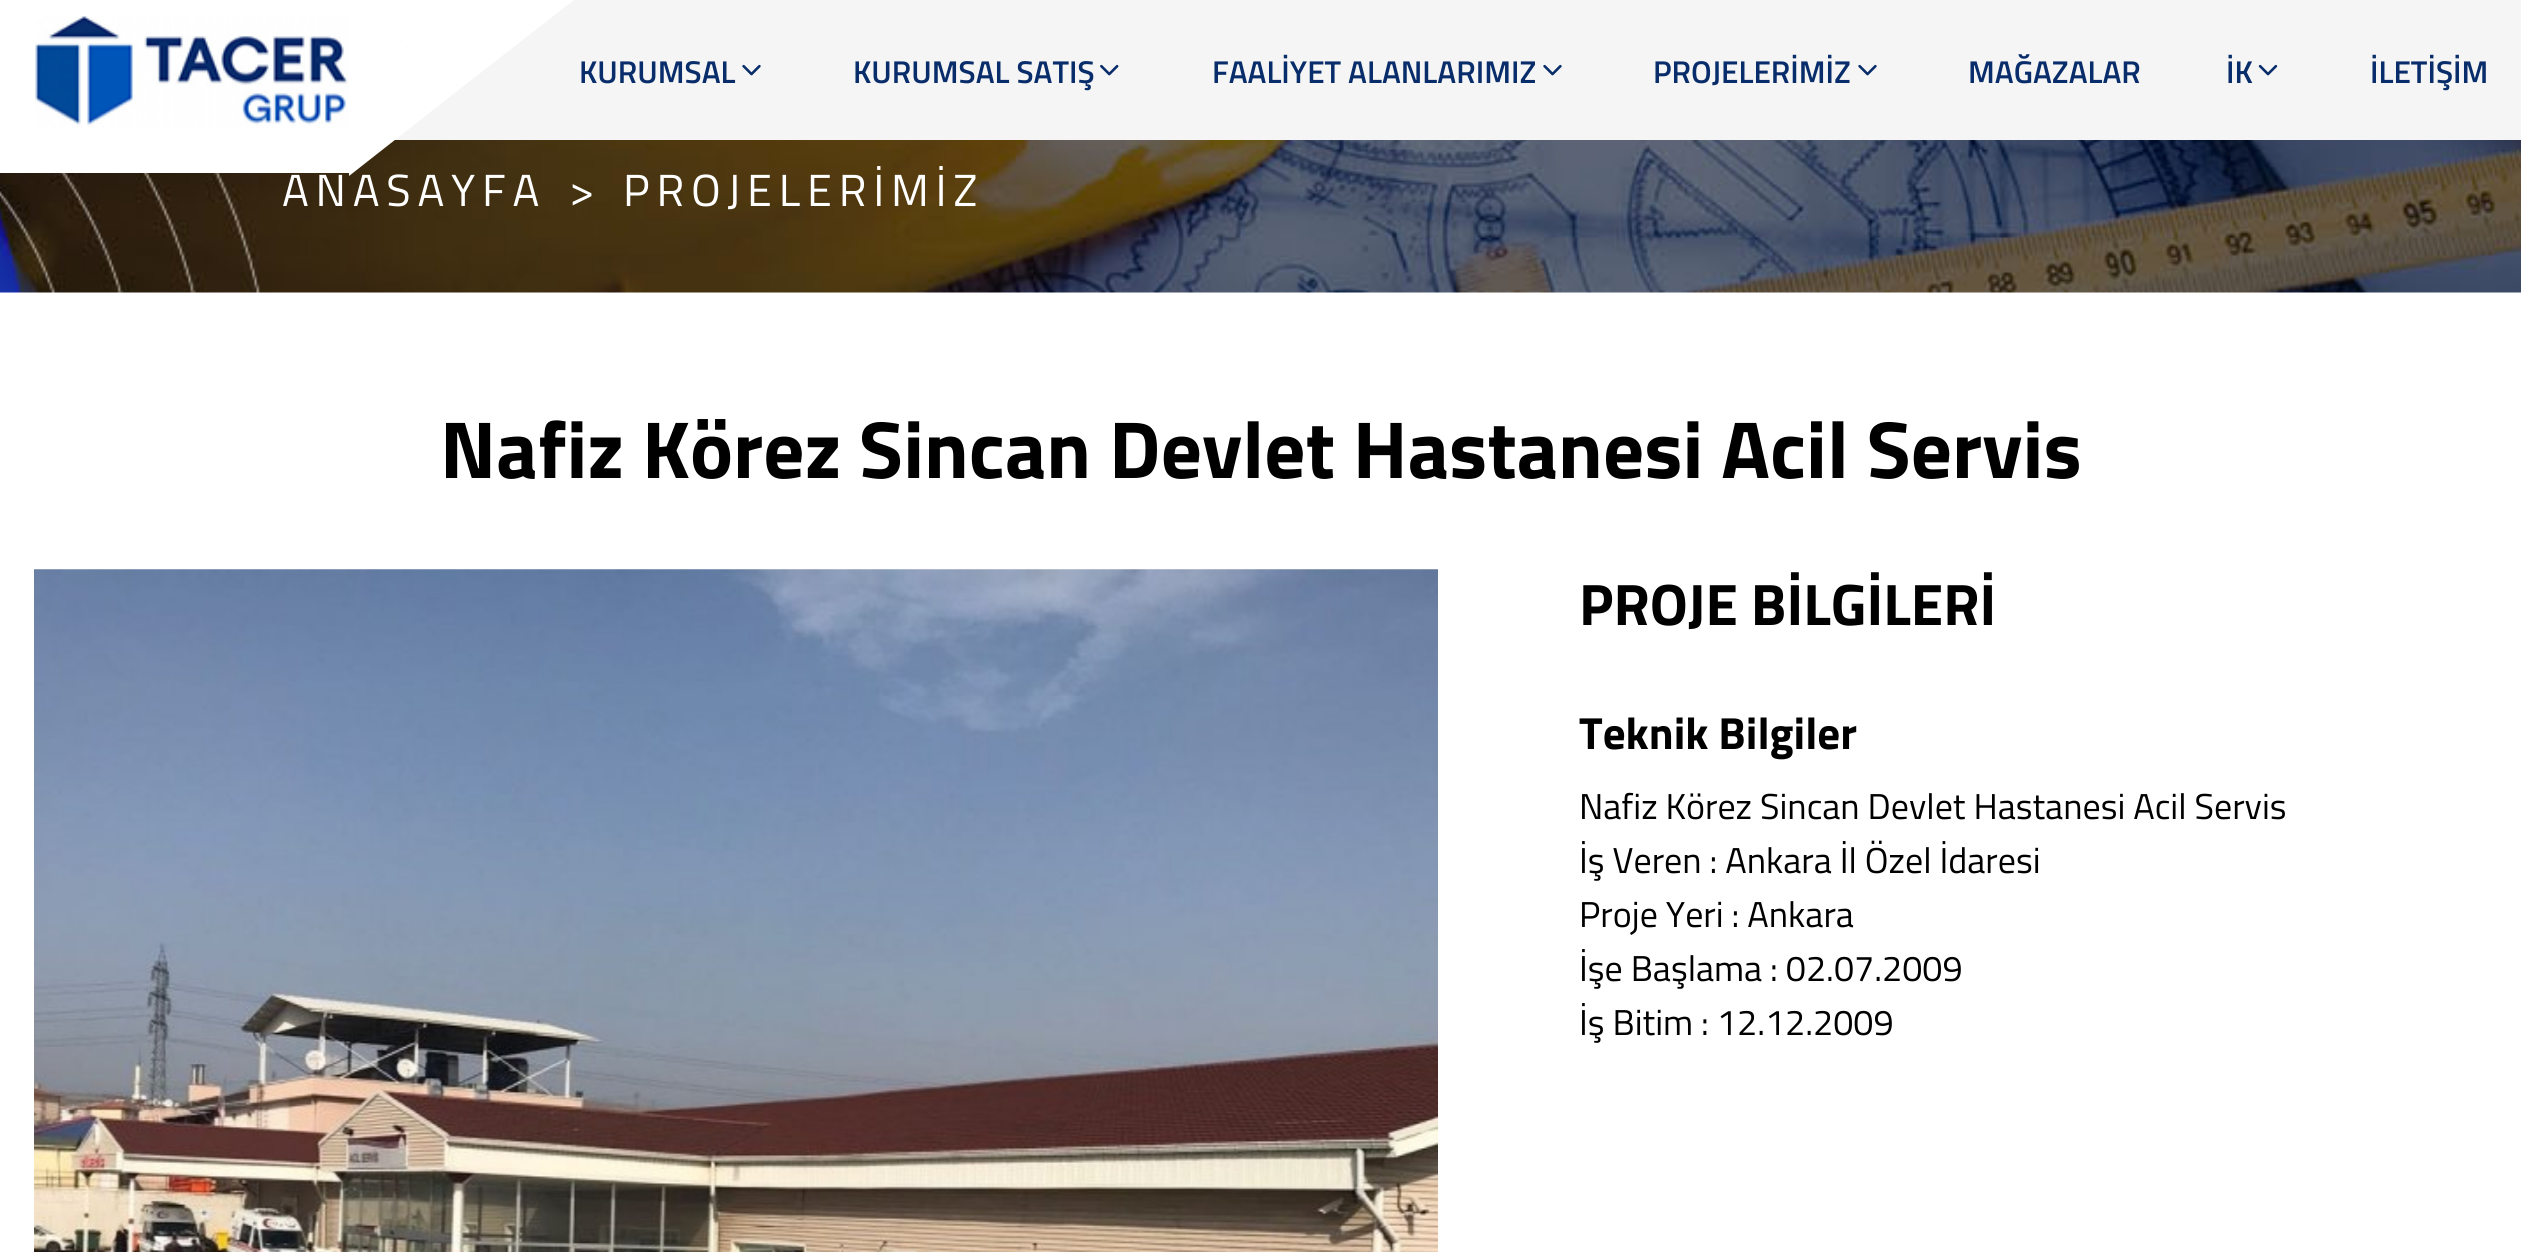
import math
import cairo


def use_color(cr, r, g, b):
  cr.set_source_rgb(r / 255, g / 255, b / 255)

def text(cr, x, y, s, family, size, color, bold=False, italic=False):
  cr.select_font_face(family, cairo.FONT_SLANT_ITALIC if italic else cairo.FONT_SLANT_NORMAL, cairo.FONT_WEIGHT_BOLD if bold else cairo.FONT_WEIGHT_NORMAL)
  cr.set_font_size(size)
  use_color(cr, *color)
  cr.move_to(x, y)
  cr.show_text(s)

def spaced_text(cr, x, y, s, letter, word):
  cr.move_to(x, y)
  for ch in s:
    cr.show_text(ch)
    cr.rel_move_to(letter + word * (ch == ' '), 0)

def box(cr, x, y, w, h, *color):
  use_color(cr, *color)
  cr.rectangle(x, y, w, h)
  cr.fill()

def picture(cr, path, x, y, w, h):
  cr.save()
  cr.set_source_surface(cairo.ImageSurface.create_from_png(path), x, y)
  cr.rectangle(x, y, w, h)
  cr.fill()
  cr.restore()

def draw(cr):
  use_color(cr, 255, 255, 255)
  cr.paint()
  box(cr, 349, 0, 2172, 140, 245, 245, 245)
  picture(cr, "img_01.png", 35, 16, 313, 112)
  use_color(cr, 255, 255, 255)
  cr.new_path()
  cr.move_to(349, 0)
  cr.line_to(574, 0)
  cr.line_to(461, 88)
  cr.close_path()
  cr.fill()
  picture(cr, "img_05.png", 0, 140, 2521, 153)
  cr.new_path()
  cr.move_to(349, 176)
  cr.line_to(349, 0)
  cr.line_to(461, 88)
  cr.close_path()
  cr.fill()
  box(cr, 0, 140, 349, 33, 255, 255, 255)
  picture(cr, "img_02.png", 742, 64, 19, 12)
  picture(cr, "img_03.png", 1100, 64, 19, 12)
  picture(cr, "img_02.png", 1543, 64, 19, 12)
  picture(cr, "img_02.png", 1858, 64, 19, 12)
  picture(cr, "img_04.png", 2258, 64, 20, 12)
  picture(cr, "img_06.png", 34, 569, 1404, 683)
  text(cr, 579, 83, "KURUMSAL", "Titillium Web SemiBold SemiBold", 31.5, (8, 45, 106))
  text(cr, 853, 83, "KURUMSAL SATIŞ", "Titillium Web SemiBold SemiBold", 31.5, (8, 45, 106))
  text(cr, 1212, 83, "FAALİYET ALANLARIMIZ", "Titillium Web SemiBold SemiBold", 31.5, (8, 45, 106))
  text(cr, 1653, 83, "PROJELERİMİZ", "Titillium Web SemiBold SemiBold", 31.5, (8, 45, 106))
  text(cr, 1968, 83, "MAĞAZALAR", "Titillium Web SemiBold SemiBold", 31.5, (8, 45, 106))
  text(cr, 2226, 83, "İK", "Titillium Web SemiBold SemiBold", 31.5, (8, 45, 106))
  text(cr, 2370, 83, "İLETİŞİM", "Titillium Web SemiBold SemiBold", 31.5, (8, 45, 106))
  cr.select_font_face("Titillium Web")
  cr.set_font_size(45)
  use_color(cr, 255, 255, 255)
  spaced_text(cr, 282, 206, "ANASAYFA", 6.75, 0)
  spaced_text(cr, 569, 206, ">", 6.75, 0)
  spaced_text(cr, 623, 206, "PROJELERİMİZ", 6.75, 0)
  text(cr, 440, 478, "Nafiz Körez Sincan Devlet Hastanesi Acil Servis", "Titillium Web", 81, (0, 0, 0), bold=True)
  text(cr, 1579, 625, "PROJE BİLGİLERİ", "Titillium Web", 58.5, (0, 0, 0), bold=True)
  text(cr, 1579, 749, "Teknik Bilgiler", "Titillium Web", 45, (0, 0, 0), bold=True)
  text(cr, 1579, 819, "Nafiz Körez Sincan Devlet Hastanesi Acil Servis", "Titillium Web", 36, (0, 0, 0))
  text(cr, 1579, 873, "İş Veren : Ankara İl Özel İdaresi", "Titillium Web", 36, (0, 0, 0))
  text(cr, 1579, 927, "Proje Yeri : Ankara", "Titillium Web", 36, (0, 0, 0))
  text(cr, 1579, 981, "İşe Başlama : 02.07.2009", "Titillium Web", 36, (0, 0, 0))
  text(cr, 1579, 1035, "İş Bitim : 12.12.2009", "Titillium Web", 36, (0, 0, 0))


surface = cairo.ImageSurface(cairo.FORMAT_RGB24, 2521, 1252)
cr = cairo.Context(surface)
options = cairo.FontOptions()
options.set_hint_metrics(cairo.HINT_METRICS_OFF)
options.set_hint_style(cairo.HINT_STYLE_NONE)
cr.set_font_options(options)
cr.set_miter_limit(4)
draw(cr)
surface.write_to_png("out.png")
